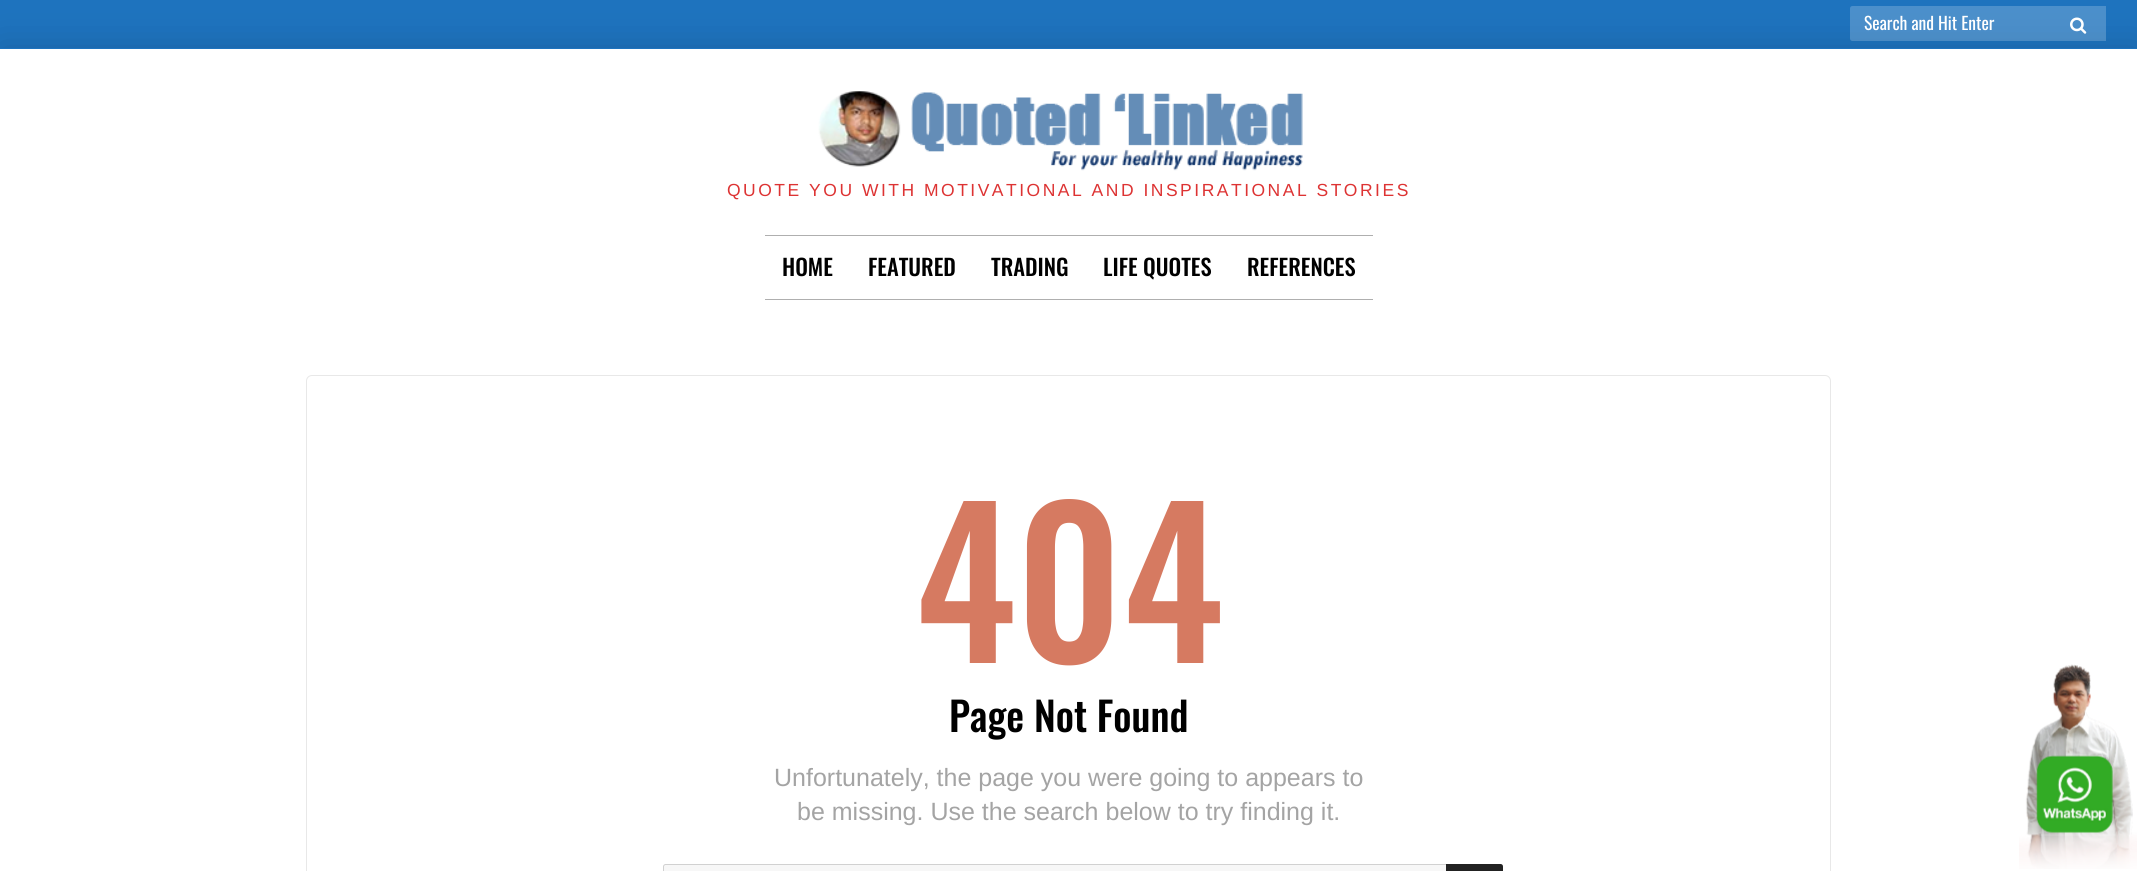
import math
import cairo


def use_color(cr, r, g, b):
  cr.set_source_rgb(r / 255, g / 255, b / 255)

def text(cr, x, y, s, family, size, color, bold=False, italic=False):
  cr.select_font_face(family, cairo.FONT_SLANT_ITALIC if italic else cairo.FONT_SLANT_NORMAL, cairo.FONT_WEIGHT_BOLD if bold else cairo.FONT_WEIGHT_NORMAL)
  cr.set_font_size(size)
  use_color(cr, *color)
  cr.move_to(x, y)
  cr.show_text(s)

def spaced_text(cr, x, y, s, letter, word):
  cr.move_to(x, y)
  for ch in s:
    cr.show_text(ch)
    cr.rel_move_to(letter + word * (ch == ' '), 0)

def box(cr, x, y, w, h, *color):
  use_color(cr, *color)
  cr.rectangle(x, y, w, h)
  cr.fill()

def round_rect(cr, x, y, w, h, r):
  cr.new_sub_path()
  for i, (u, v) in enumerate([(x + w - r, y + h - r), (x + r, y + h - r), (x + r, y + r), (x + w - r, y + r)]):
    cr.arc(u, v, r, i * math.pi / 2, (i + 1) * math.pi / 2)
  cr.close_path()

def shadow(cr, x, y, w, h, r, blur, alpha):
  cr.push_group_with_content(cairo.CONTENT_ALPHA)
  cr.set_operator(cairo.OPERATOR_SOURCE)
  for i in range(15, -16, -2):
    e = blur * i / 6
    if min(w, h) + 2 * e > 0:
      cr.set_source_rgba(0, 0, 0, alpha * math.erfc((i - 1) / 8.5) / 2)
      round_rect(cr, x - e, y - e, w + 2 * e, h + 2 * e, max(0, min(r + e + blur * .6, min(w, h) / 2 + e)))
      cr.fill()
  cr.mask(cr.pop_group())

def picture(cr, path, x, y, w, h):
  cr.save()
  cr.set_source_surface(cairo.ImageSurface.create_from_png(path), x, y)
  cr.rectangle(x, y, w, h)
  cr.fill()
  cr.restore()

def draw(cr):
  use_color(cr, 30, 115, 190)
  cr.paint()
  use_color(cr, 0, 0, 0)
  shadow(cr, 0, 48, 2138, 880, 0, 19, 0.15)
  cr.set_source_rgba(1, 1, 1, 0.2)
  cr.new_path()
  cr.move_to(1852.5, 6)
  cr.line_to(2106, 6)
  cr.line_to(2106, 41)
  cr.line_to(1852.5, 41)
  cr.curve_to(1851, 41, 1850, 40, 1850, 38.5)
  cr.line_to(1850, 8.5)
  cr.curve_to(1850, 7, 1851, 6, 1852.5, 6)
  cr.close_path()
  cr.fill()
  picture(cr, "img_01.png", 2070, 17, 17, 17)
  box(cr, 0, 49, 2137, 822, 255, 255, 255)
  box(cr, 0, 48, 2137, 1, 30, 115, 190)
  picture(cr, "img_02.png", 818, 91, 485, 80)
  box(cr, 765, 235, 608, 1, 175, 175, 175)
  box(cr, 765, 299, 608, 1, 175, 175, 175)
  round_rect(cr, 306.5, 375.5, 1524, 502, 5.5)
  use_color(cr, 232, 232, 232)
  cr.set_line_width(1)
  cr.stroke()
  use_color(cr, 247, 247, 247)
  cr.new_path()
  cr.move_to(665.5, 864.5)
  cr.line_to(1474.5, 864.5)
  cr.line_to(1474.5, 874.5)
  cr.line_to(665.5, 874.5)
  cr.curve_to(664.5, 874.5, 663.5, 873.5, 663.5, 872.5)
  cr.line_to(663.5, 866.5)
  cr.curve_to(663.5, 865.5, 664.5, 864.5, 665.5, 864.5)
  cr.close_path()
  cr.fill_preserve()
  use_color(cr, 209, 209, 209)
  cr.stroke()
  use_color(cr, 34, 34, 34)
  cr.new_path()
  cr.move_to(1446, 864)
  cr.line_to(1500.5, 864)
  cr.curve_to(1502, 864, 1503, 865, 1503, 866.5)
  cr.line_to(1503, 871.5)
  cr.curve_to(1503, 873, 1502, 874, 1500.5, 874)
  cr.line_to(1446, 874)
  cr.close_path()
  cr.fill()
  picture(cr, "img_03.png", 2019, 664, 118, 205)
  text(cr, 1864, 30, "Search and Hit Enter", "Oswald", 17.5, (255, 255, 255))
  cr.select_font_face("Liberation Sans")
  use_color(cr, 221, 51, 51)
  spaced_text(cr, 727, 196, "QUOTE YOU WITH MOTIVATIONAL AND INSPIRATIONAL STORIES", 2.5, 0)
  text(cr, 782, 276, "HOME", "Oswald Medium", 22.5, (0, 0, 0))
  text(cr, 868, 276, "FEATURED", "Oswald Medium", 22.5, (0, 0, 0))
  text(cr, 991, 276, "TRADING", "Oswald Medium", 22.5, (0, 0, 0))
  text(cr, 1103, 276, "LIFE QUOTES", "Oswald Medium", 22.5, (0, 0, 0))
  text(cr, 1247, 276, "REFERENCES", "Oswald Medium", 22.5, (0, 0, 0))
  text(cr, 915, 663, "404", "Oswald Medium", 200, (214, 122, 97))
  text(cr, 949, 732, "Page Not Found", "Oswald Medium", 40, (0, 0, 0))
  text(cr, 774, 786, "Unfortunately, the page you were going to appears to", "Liberation Sans", 25, (164, 164, 164))
  text(cr, 797, 820, "be missing. Use the search below to try finding it.", "Liberation Sans", 25, (164, 164, 164))


surface = cairo.ImageSurface(cairo.FORMAT_RGB24, 2137, 871)
cr = cairo.Context(surface)
options = cairo.FontOptions()
options.set_hint_metrics(cairo.HINT_METRICS_OFF)
options.set_hint_style(cairo.HINT_STYLE_NONE)
cr.set_font_options(options)
cr.set_miter_limit(4)
draw(cr)
surface.write_to_png("out.png")
